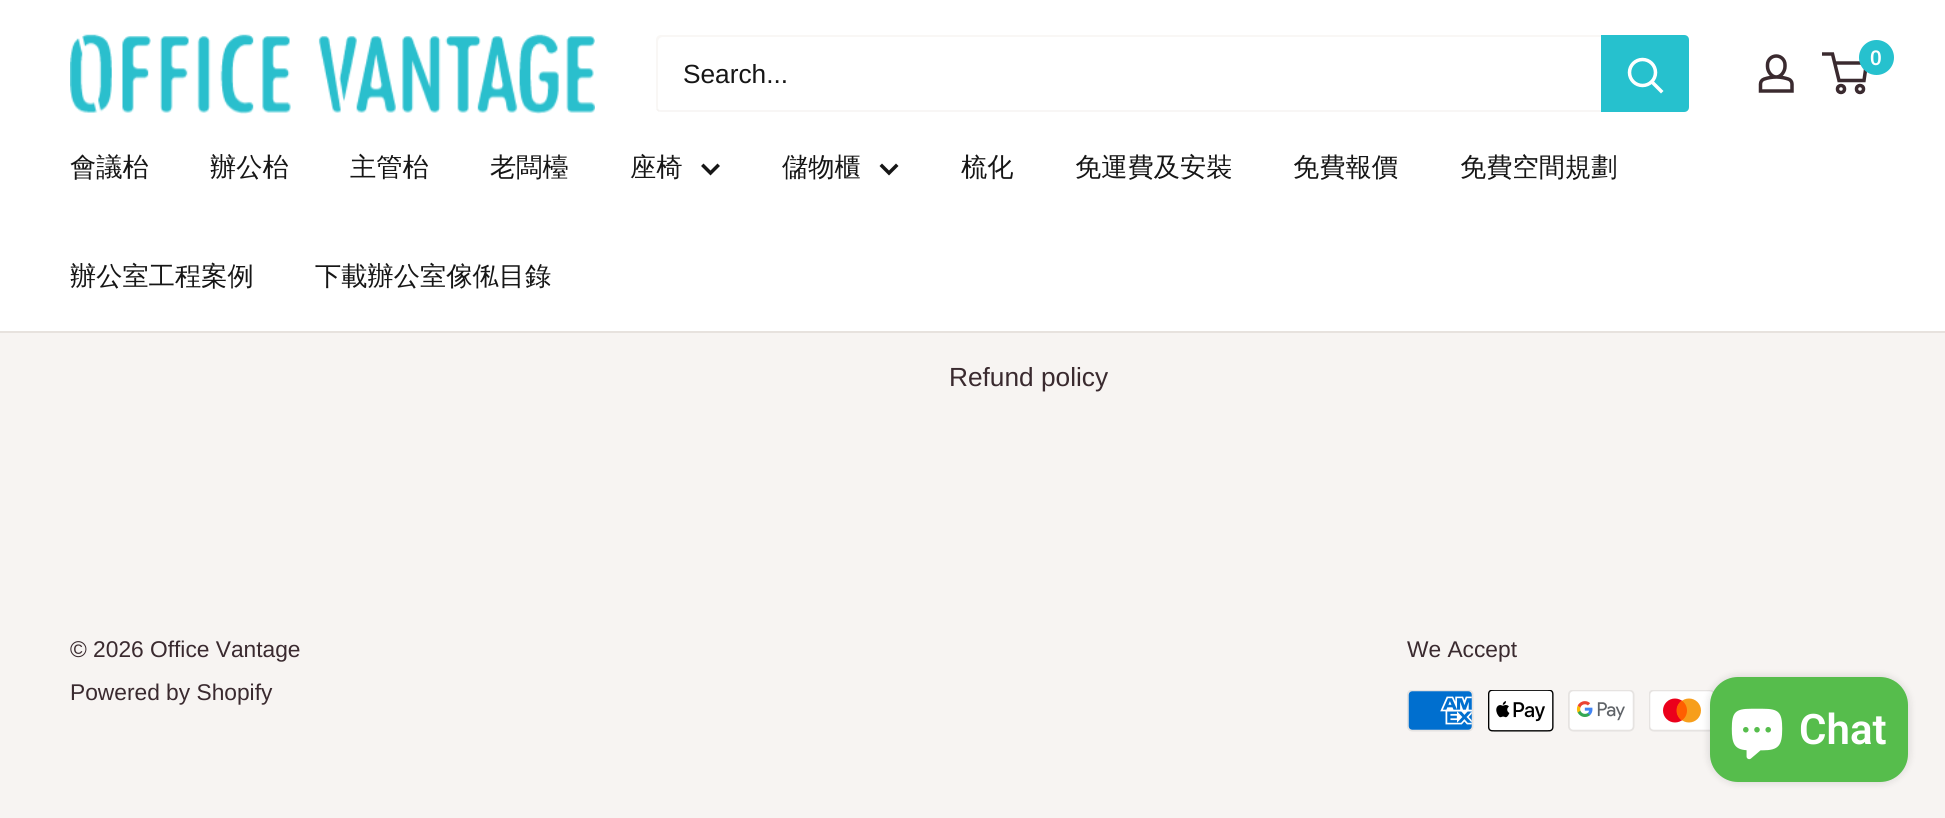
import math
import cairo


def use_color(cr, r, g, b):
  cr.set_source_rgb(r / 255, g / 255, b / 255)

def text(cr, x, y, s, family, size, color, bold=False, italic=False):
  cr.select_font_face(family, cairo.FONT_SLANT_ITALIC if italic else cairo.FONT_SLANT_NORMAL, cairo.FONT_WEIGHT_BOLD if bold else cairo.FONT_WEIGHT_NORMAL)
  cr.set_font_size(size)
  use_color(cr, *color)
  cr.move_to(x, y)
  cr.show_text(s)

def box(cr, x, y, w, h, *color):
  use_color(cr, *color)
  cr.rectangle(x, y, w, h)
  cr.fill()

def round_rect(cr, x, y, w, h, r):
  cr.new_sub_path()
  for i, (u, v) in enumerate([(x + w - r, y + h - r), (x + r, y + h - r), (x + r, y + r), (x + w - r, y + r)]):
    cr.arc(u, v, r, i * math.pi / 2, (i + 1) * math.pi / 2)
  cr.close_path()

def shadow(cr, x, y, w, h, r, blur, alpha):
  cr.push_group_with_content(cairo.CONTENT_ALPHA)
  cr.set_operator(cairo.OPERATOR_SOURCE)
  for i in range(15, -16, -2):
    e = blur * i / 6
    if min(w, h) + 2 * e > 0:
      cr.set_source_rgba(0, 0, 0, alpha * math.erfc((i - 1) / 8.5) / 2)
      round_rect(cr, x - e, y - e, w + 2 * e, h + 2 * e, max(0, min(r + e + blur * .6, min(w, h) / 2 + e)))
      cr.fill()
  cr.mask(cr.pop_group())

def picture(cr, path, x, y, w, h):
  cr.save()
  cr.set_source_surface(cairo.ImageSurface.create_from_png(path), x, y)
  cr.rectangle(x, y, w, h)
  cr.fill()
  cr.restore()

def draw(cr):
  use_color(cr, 247, 244, 242)
  cr.paint()
  box(cr, 0, 0, 1945, 331, 255, 255, 255)
  picture(cr, "img_01.png", 70, 34, 525, 80)
  picture(cr, "img_02.png", 1758, 54, 36, 39)
  cr.arc(1841, 89, 3.5, 0, 2 * math.pi)
  use_color(cr, 58, 42, 47)
  cr.set_line_width(3.5)
  cr.stroke()
  cr.arc(1860, 89, 3.5, 0, 2 * math.pi)
  cr.stroke()
  cr.new_path()
  cr.move_to(1834.5, 63)
  cr.line_to(1866.5, 63)
  cr.line_to(1864, 80.5)
  cr.line_to(1839, 80.5)
  cr.line_to(1832.5, 54)
  cr.line_to(1822, 54)
  cr.stroke()
  use_color(cr, 38, 193, 206)
  cr.arc(1876.5, 57.5, 17.5, 0, 2 * math.pi)
  cr.fill()
  use_color(cr, 248, 246, 245)
  cr.new_path()
  cr.move_to(656, 109)
  cr.curve_to(657, 111, 659, 112, 661, 112)
  cr.line_to(1684, 112)
  cr.curve_to(1687, 112, 1689, 110, 1689, 107)
  cr.line_to(1689, 40)
  cr.curve_to(1689, 38, 1688, 36, 1686, 36)
  cr.line_to(1687, 38)
  cr.line_to(1687, 105)
  cr.curve_to(1687, 108, 1685, 110, 1682, 110)
  cr.line_to(660, 110)
  cr.close_path()
  cr.fill()
  cr.set_source_rgba(0.914, 0.886, 0.867, 0.3)
  cr.new_path()
  cr.move_to(663, 37)
  cr.line_to(1685, 37)
  cr.curve_to(1687, 37, 1688, 38, 1689, 39)
  cr.curve_to(1688, 36, 1686, 35, 1684, 35)
  cr.line_to(661, 35)
  cr.curve_to(658, 35, 656, 37, 656, 40)
  cr.line_to(656, 107)
  cr.curve_to(656, 109, 657, 111, 659, 112)
  cr.line_to(658, 108)
  cr.line_to(658, 42)
  cr.curve_to(658, 39, 660, 37, 663, 37)
  cr.close_path()
  cr.fill()
  use_color(cr, 38, 193, 206)
  cr.new_path()
  cr.move_to(1601, 35)
  cr.line_to(1684, 35)
  cr.curve_to(1687, 35, 1689, 37, 1689, 40)
  cr.line_to(1689, 107)
  cr.curve_to(1689, 110, 1687, 112, 1684, 112)
  cr.line_to(1601, 112)
  cr.close_path()
  cr.fill()
  cr.new_path()
  cr.move_to(1661, 91)
  cr.line_to(1652, 82)
  use_color(cr, 255, 255, 255)
  cr.set_line_cap(cairo.LINE_CAP_SQUARE)
  cr.stroke()
  cr.arc(1642.5, 72.5, 13, 0, 2 * math.pi)
  cr.set_line_cap(cairo.LINE_CAP_BUTT)
  cr.stroke()
  box(cr, 0, 331, 1945, 2, 231, 226, 222)
  cr.new_path()
  cr.move_to(717.5, 166)
  cr.line_to(710.5, 173)
  cr.line_to(703.5, 166)
  use_color(cr, 22, 22, 22)
  cr.set_line_cap(cairo.LINE_CAP_SQUARE)
  cr.stroke()
  cr.new_path()
  cr.move_to(896, 166)
  cr.line_to(889, 173)
  cr.line_to(882, 166)
  cr.stroke()
  picture(cr, "img_03.png", 1407, 690, 67, 42)
  picture(cr, "img_04.png", 1488, 690, 66, 42)
  picture(cr, "img_05.png", 1568, 690, 67, 42)
  picture(cr, "img_06.png", 1649, 690, 65, 42)
  use_color(cr, 0, 0, 0)
  shadow(cr, 1710, 677, 198, 105, 28, 4.5, 0.15)
  use_color(cr, 86, 189, 76)
  round_rect(cr, 1710, 677, 198, 105, 28)
  cr.fill()
  picture(cr, "img_07.png", 1731, 708, 52, 52)
  text(cr, 1870, 65, "0", "Arimo SemiBold", 21, (255, 255, 255))
  text(cr, 683, 83, "Search...", "Arimo", 26.25, (22, 22, 22))
  text(cr, 70, 176, "會議枱", "WenQuanYi Zen Hei Medium", 26.25, (22, 22, 22))
  text(cr, 210, 176, "辦公枱", "WenQuanYi Zen Hei Medium", 26.25, (22, 22, 22))
  text(cr, 350, 176, "主管枱", "WenQuanYi Zen Hei Medium", 26.25, (22, 22, 22))
  text(cr, 490, 176, "老闆檯", "WenQuanYi Zen Hei Medium", 26.25, (22, 22, 22))
  text(cr, 630, 176, "座椅", "WenQuanYi Zen Hei Medium", 26.25, (22, 22, 22))
  text(cr, 782, 176, "儲物櫃", "WenQuanYi Zen Hei Medium", 26.25, (22, 22, 22))
  text(cr, 961, 176, "梳化", "WenQuanYi Zen Hei Medium", 26.25, (22, 22, 22))
  text(cr, 1075, 176, "免運費及安裝", "WenQuanYi Zen Hei Medium", 26.25, (22, 22, 22))
  text(cr, 1293, 176, "免費報價", "WenQuanYi Zen Hei Medium", 26.25, (22, 22, 22))
  text(cr, 1460, 176, "免費空間規劃", "WenQuanYi Zen Hei Medium", 26.25, (22, 22, 22))
  text(cr, 70, 285, "辦公室工程案例", "WenQuanYi Zen Hei Medium", 26.25, (22, 22, 22))
  text(cr, 315, 285, "下載辦公室傢俬目錄", "WenQuanYi Zen Hei Medium", 26.25, (22, 22, 22))
  text(cr, 949, 386, "Refund policy", "Arimo", 26.25, (58, 42, 47))
  text(cr, 70, 657, "© 2026 Office Vantage", "Arimo", 22.75, (58, 42, 47))
  text(cr, 70, 700, "Powered by Shopify", "Arimo", 22.75, (58, 42, 47))
  text(cr, 1407, 657, "We Accept", "Arimo", 22.75, (58, 42, 47))
  text(cr, 1799, 744, "Chat", "Roboto SemiBold", 42, (255, 255, 255))


surface = cairo.ImageSurface(cairo.FORMAT_RGB24, 1945, 818)
cr = cairo.Context(surface)
options = cairo.FontOptions()
options.set_hint_metrics(cairo.HINT_METRICS_OFF)
options.set_hint_style(cairo.HINT_STYLE_NONE)
cr.set_font_options(options)
cr.set_miter_limit(4)
draw(cr)
surface.write_to_png("out.png")
